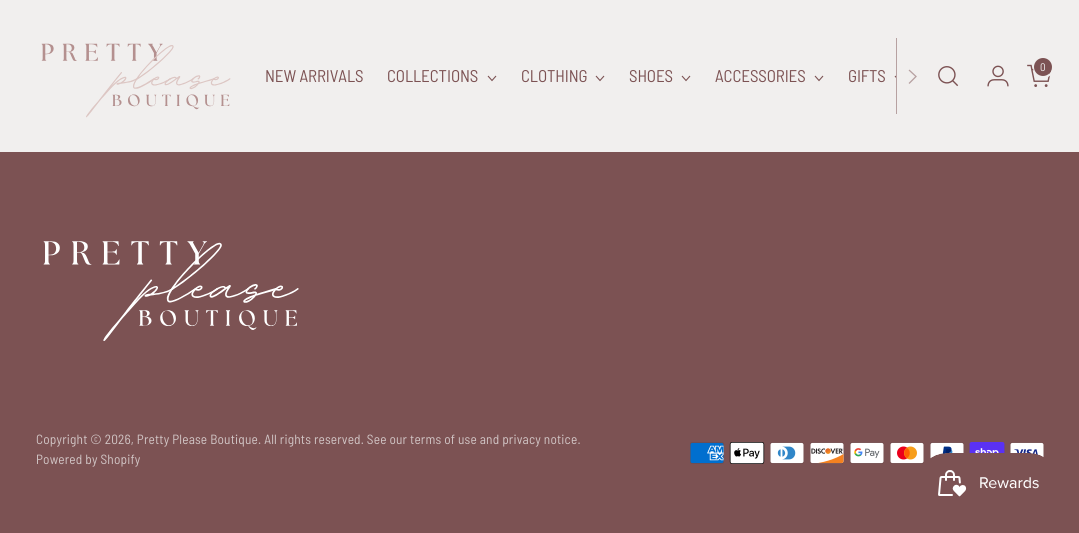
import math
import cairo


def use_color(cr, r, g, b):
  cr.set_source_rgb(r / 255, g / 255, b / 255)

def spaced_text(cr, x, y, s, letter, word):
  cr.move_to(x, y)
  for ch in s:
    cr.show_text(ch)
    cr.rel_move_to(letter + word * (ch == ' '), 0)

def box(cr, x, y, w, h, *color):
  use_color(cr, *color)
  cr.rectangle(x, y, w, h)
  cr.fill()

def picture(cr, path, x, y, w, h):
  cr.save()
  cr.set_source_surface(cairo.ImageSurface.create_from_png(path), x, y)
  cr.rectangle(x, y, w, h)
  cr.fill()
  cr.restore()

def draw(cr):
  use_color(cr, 124, 82, 83)
  cr.paint()
  box(cr, 0, 0, 1079, 152, 241, 239, 238)
  picture(cr, "img_01.png", 938, 66, 21, 21)
  picture(cr, "img_02.png", 987, 65, 22, 22)
  picture(cr, "img_03.png", 1027, 64, 25, 23)
  cr.arc(1043.5, 67.5, 9.5, 0, 2 * math.pi)
  cr.stroke()
  use_color(cr, 124, 82, 83)
  cr.arc(1043, 67, 9, 0, 2 * math.pi)
  cr.fill()
  picture(cr, "img_04.png", 41, 43, 190, 75)
  cr.new_path()
  cr.move_to(488, 76)
  cr.line_to(492, 80.5)
  cr.line_to(496, 76)
  cr.set_line_width(1.1)
  cr.stroke()
  cr.new_path()
  cr.move_to(596, 76)
  cr.line_to(600, 80.5)
  cr.line_to(604, 76)
  cr.stroke()
  cr.new_path()
  cr.move_to(682, 76)
  cr.line_to(686, 80.5)
  cr.line_to(690, 76)
  cr.stroke()
  cr.new_path()
  cr.move_to(815, 76)
  cr.line_to(819, 80.5)
  cr.line_to(823, 76)
  cr.stroke()
  cr.save()
  cr.rectangle(894, 73, 2, 10)
  cr.clip()
  cr.new_path()
  cr.move_to(895, 76)
  cr.line_to(899, 80.5)
  cr.line_to(903, 76)
  cr.stroke()
  cr.restore()
  box(cr, 896, 38, 1, 76, 183, 161, 161)
  cr.new_path()
  cr.move_to(909, 83.5)
  cr.line_to(916, 76.5)
  cr.line_to(909, 70)
  cr.set_line_width(1.3)
  cr.stroke()
  picture(cr, "img_05.png", 43, 241, 256, 100)
  picture(cr, "img_06.png", 690, 442, 34, 22)
  picture(cr, "img_07.png", 729, 442, 36, 22)
  picture(cr, "img_08.png", 770, 442, 34, 22)
  picture(cr, "img_09.png", 810, 442, 34, 22)
  picture(cr, "img_10.png", 850, 442, 34, 22)
  picture(cr, "img_11.png", 890, 442, 34, 22)
  picture(cr, "img_12.png", 930, 442, 34, 17)
  picture(cr, "img_13.png", 969, 442, 36, 11)
  picture(cr, "img_14.png", 1010, 442, 34, 16)
  picture(cr, "img_15.png", 930, 453, 114, 44)
  cr.select_font_face("Barlow Semi Condensed")
  cr.set_font_size(11)
  use_color(cr, 241, 239, 238)
  spaced_text(cr, 1040, 71, "0", 0.17, 0)
  cr.set_font_size(17)
  use_color(cr, 124, 82, 83)
  spaced_text(cr, 265, 82, "NEW ARRIVALS", -0.1, 0)
  spaced_text(cr, 387, 82, "COLLECTIONS", -0.1, 0)
  spaced_text(cr, 521, 82, "CLOTHING", -0.1, 0)
  spaced_text(cr, 629, 82, "SHOES", -0.1, 0)
  spaced_text(cr, 715, 82, "ACCESSORIES", -0.1, 0)
  spaced_text(cr, 848, 82, "GIFTS", -0.1, 0)
  cr.set_font_size(13.35)
  use_color(cr, 209, 197, 197)
  spaced_text(cr, 36, 444, "Copyright © 2026, Pretty Please Boutique. All rights reserved. See our terms of use and privacy notice.", 0.17, 0)
  spaced_text(cr, 36, 464, "Powered by Shopify", 0.17, 0)


surface = cairo.ImageSurface(cairo.FORMAT_RGB24, 1079, 533)
cr = cairo.Context(surface)
options = cairo.FontOptions()
options.set_hint_metrics(cairo.HINT_METRICS_OFF)
options.set_hint_style(cairo.HINT_STYLE_NONE)
cr.set_font_options(options)
cr.set_miter_limit(4)
draw(cr)
surface.write_to_png("out.png")
